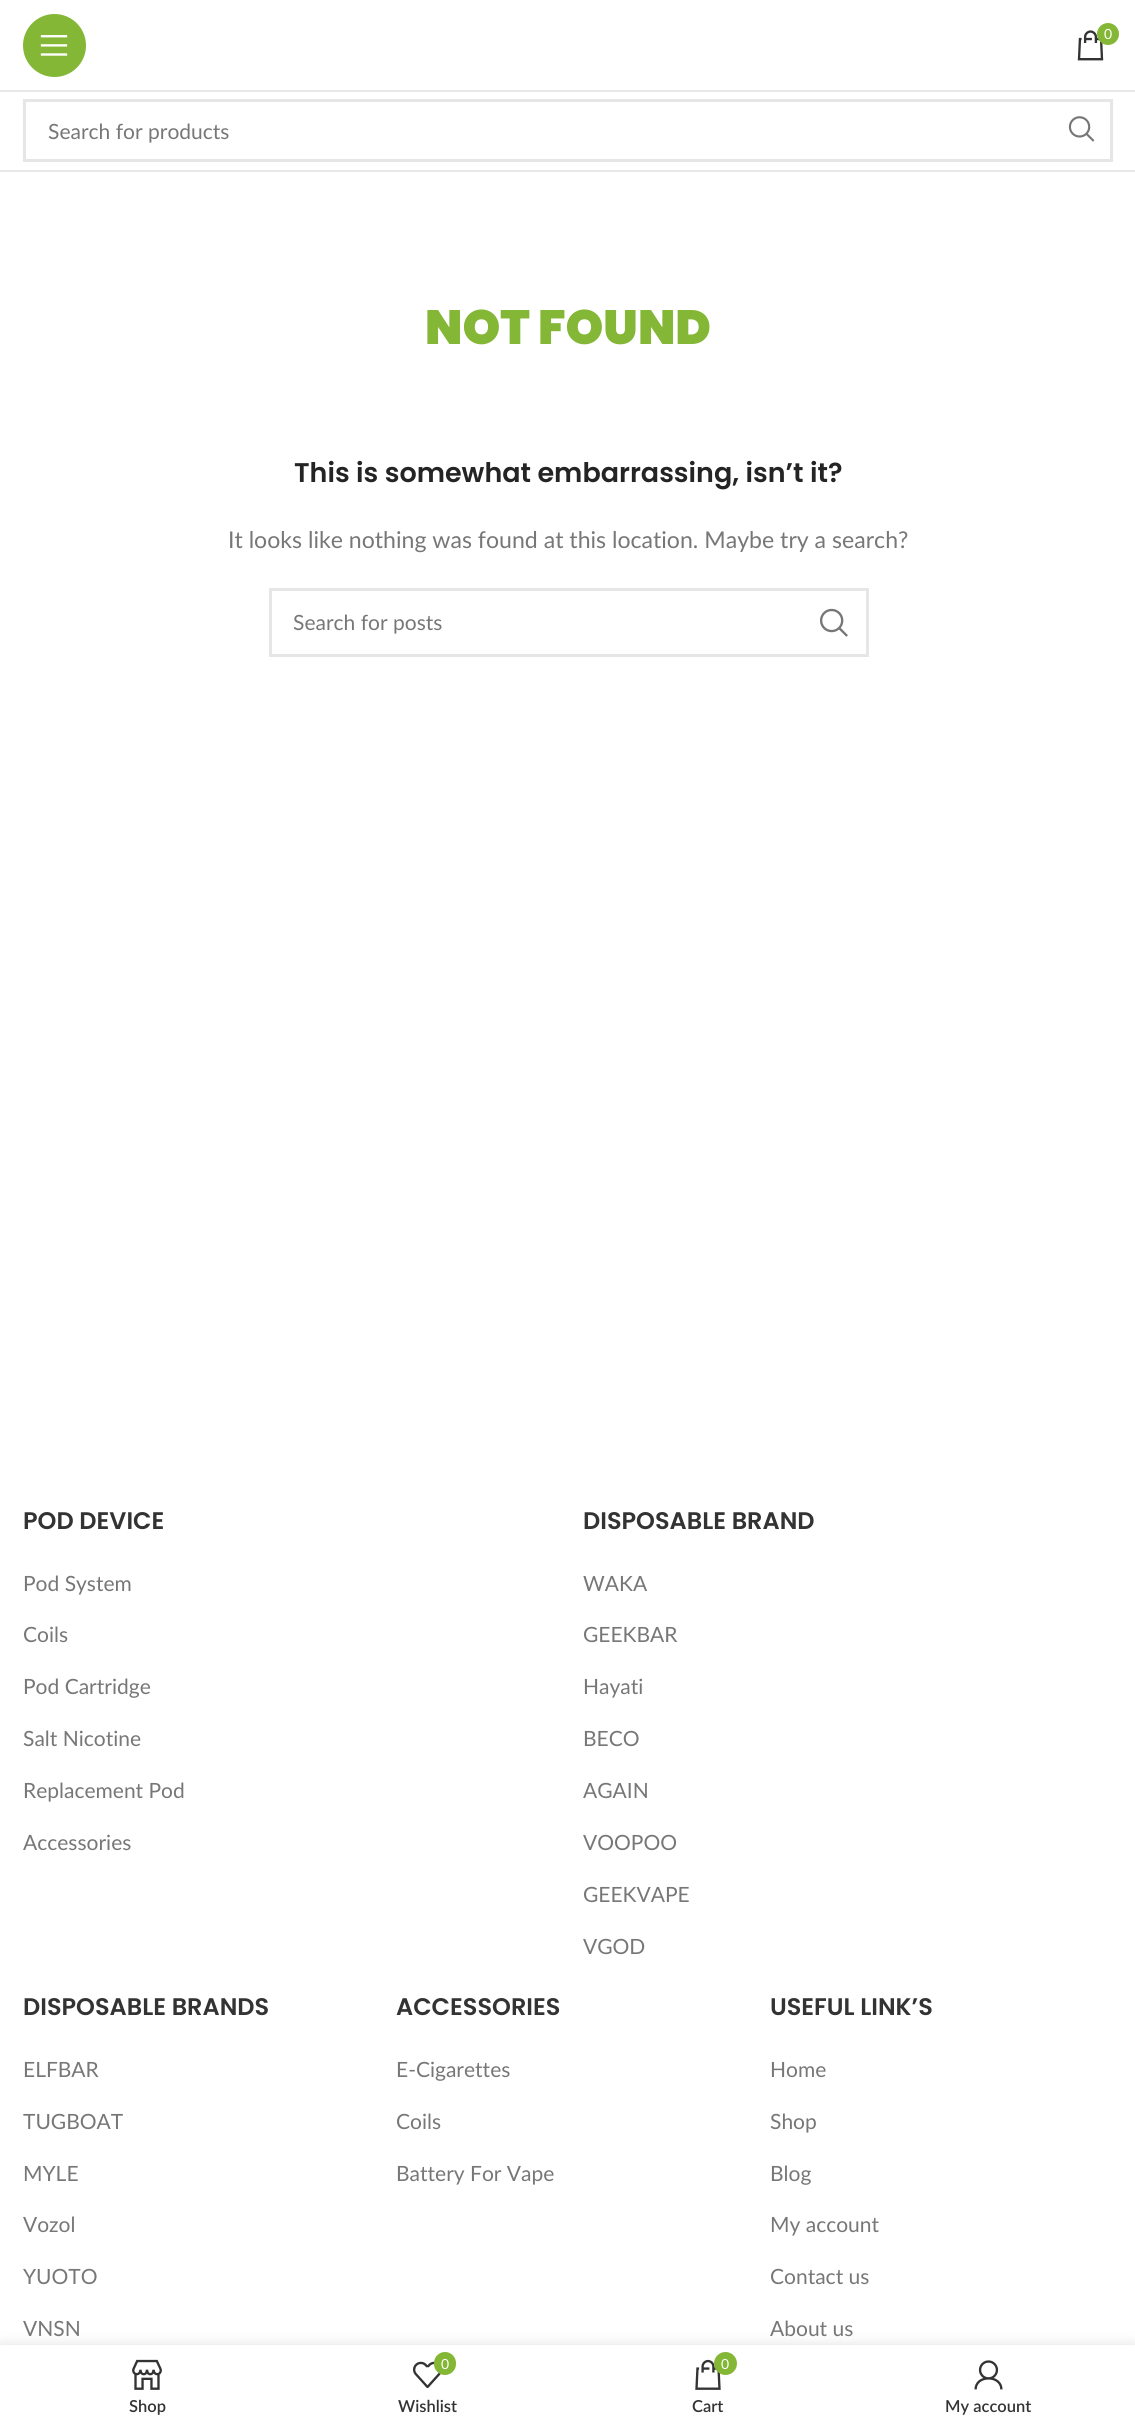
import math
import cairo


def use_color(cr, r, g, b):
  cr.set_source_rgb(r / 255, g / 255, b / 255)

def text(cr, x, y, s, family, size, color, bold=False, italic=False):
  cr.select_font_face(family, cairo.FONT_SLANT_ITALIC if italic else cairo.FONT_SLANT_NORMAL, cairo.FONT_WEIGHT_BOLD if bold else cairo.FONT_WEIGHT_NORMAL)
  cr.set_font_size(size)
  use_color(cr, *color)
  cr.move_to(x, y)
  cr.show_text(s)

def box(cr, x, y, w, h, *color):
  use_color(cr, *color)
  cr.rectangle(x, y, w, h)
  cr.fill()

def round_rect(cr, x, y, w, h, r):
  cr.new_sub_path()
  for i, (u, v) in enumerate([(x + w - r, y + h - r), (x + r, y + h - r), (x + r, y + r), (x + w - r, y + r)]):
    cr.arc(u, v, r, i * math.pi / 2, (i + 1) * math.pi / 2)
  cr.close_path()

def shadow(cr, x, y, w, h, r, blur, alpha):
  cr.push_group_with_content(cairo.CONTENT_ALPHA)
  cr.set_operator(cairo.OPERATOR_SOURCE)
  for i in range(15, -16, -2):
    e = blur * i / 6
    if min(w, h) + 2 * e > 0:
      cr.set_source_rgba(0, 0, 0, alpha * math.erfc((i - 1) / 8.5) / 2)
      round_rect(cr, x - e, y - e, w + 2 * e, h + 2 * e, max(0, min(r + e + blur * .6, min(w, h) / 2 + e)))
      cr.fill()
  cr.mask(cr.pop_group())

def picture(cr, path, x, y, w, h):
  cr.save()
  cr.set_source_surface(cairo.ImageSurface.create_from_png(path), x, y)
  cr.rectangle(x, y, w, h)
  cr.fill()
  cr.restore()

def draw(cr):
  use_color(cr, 255, 255, 255)
  cr.paint()
  box(cr, 0, 90, 1135, 2, 232, 232, 232)
  use_color(cr, 131, 183, 53)
  cr.arc(54.5, 45.5, 31.5, 0, 2 * math.pi)
  cr.fill()
  picture(cr, "img_01.png", 40, 35, 28, 21)
  picture(cr, "img_02.png", 1077, 30, 27, 31)
  cr.arc(1108, 34, 11, 0, 2 * math.pi)
  cr.fill()
  box(cr, 0, 170, 1135, 2, 232, 232, 232)
  cr.rectangle(24.5, 100.5, 1087, 60)
  use_color(cr, 230, 230, 230)
  cr.set_line_width(3)
  cr.stroke()
  picture(cr, "img_03.png", 1068, 116, 27, 26)
  cr.rectangle(270.5, 589.5, 597, 66)
  cr.stroke()
  picture(cr, "img_04.png", 819, 608, 29, 29)
  use_color(cr, 0, 0, 0)
  shadow(cr, 0, 2345, 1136, 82, 0, 7, 0.12)
  box(cr, 0, 2345, 1135, 81, 255, 255, 255)
  picture(cr, "img_05.png", 132, 2359, 30, 31)
  picture(cr, "img_06.png", 413, 2361, 28, 27)
  use_color(cr, 131, 183, 53)
  round_rect(cr, 434, 2352, 22, 23, 11)
  cr.fill()
  picture(cr, "img_07.png", 695, 2359, 26, 31)
  cr.arc(725.5, 2363.5, 11.5, 0, 2 * math.pi)
  cr.fill()
  picture(cr, "img_08.png", 974, 2360, 29, 30)
  text(cr, 1104, 39, "0", "Lato", 14, (255, 255, 255))
  text(cr, 48, 139, "Search for products", "Lato", 21, (119, 119, 119))
  text(cr, 425, 344, "NOT FOUND", "Poppins Black", 48, (131, 183, 53))
  text(cr, 294, 482, "This is somewhat embarrassing, isn’t it?", "Poppins SemiBold", 27, (36, 36, 36))
  text(cr, 228, 548, "It looks like nothing was found at this location. Maybe try a search?", "Lato", 23.1, (119, 119, 119))
  text(cr, 293, 630, "Search for posts", "Lato", 21, (119, 119, 119))
  text(cr, 23, 1529, "POD DEVICE", "Poppins SemiBold", 24, (51, 51, 51))
  text(cr, 23, 1591, "Pod System", "Lato", 21, (119, 119, 119))
  text(cr, 23, 1642, "Coils", "Lato", 21, (119, 119, 119))
  text(cr, 23, 1694, "Pod Cartridge", "Lato", 21, (119, 119, 119))
  text(cr, 23, 1746, "Salt Nicotine", "Lato", 21, (119, 119, 119))
  text(cr, 23, 1798, "Replacement Pod", "Lato", 21, (119, 119, 119))
  text(cr, 23, 1850, "Accessories", "Lato", 21, (119, 119, 119))
  text(cr, 583, 1529, "DISPOSABLE BRAND", "Poppins SemiBold", 24, (51, 51, 51))
  text(cr, 583, 1591, "WAKA", "Lato", 21, (119, 119, 119))
  text(cr, 583, 1642, "GEEKBAR", "Lato", 21, (119, 119, 119))
  text(cr, 583, 1694, "Hayati", "Lato", 21, (119, 119, 119))
  text(cr, 583, 1746, "BECO", "Lato", 21, (119, 119, 119))
  text(cr, 583, 1798, "AGAIN", "Lato", 21, (119, 119, 119))
  text(cr, 583, 1850, "VOOPOO", "Lato", 21, (119, 119, 119))
  text(cr, 583, 1902, "GEEKVAPE", "Lato", 21, (119, 119, 119))
  text(cr, 583, 1954, "VGOD", "Lato", 21, (119, 119, 119))
  text(cr, 23, 2015, "DISPOSABLE BRANDS", "Poppins SemiBold", 24, (51, 51, 51))
  text(cr, 23, 2077, "ELFBAR", "Lato", 21, (119, 119, 119))
  text(cr, 23, 2129, "TUGBOAT", "Lato", 21, (119, 119, 119))
  text(cr, 23, 2181, "MYLE", "Lato", 21, (119, 119, 119))
  text(cr, 23, 2232, "Vozol", "Lato", 21, (119, 119, 119))
  text(cr, 23, 2284, "YUOTO", "Lato", 21, (119, 119, 119))
  text(cr, 23, 2336, "VNSN", "Lato", 21, (119, 119, 119))
  text(cr, 396, 2015, "ACCESSORIES", "Poppins SemiBold", 24, (51, 51, 51))
  text(cr, 396, 2077, "E-Cigarettes", "Lato", 21, (119, 119, 119))
  text(cr, 396, 2129, "Coils", "Lato", 21, (119, 119, 119))
  text(cr, 396, 2181, "Battery For Vape", "Lato", 21, (119, 119, 119))
  text(cr, 770, 2015, "USEFUL LINK’S", "Poppins SemiBold", 24, (51, 51, 51))
  text(cr, 770, 2077, "Home", "Lato", 21, (119, 119, 119))
  text(cr, 770, 2129, "Shop", "Lato", 21, (119, 119, 119))
  text(cr, 770, 2181, "Blog", "Lato", 21, (119, 119, 119))
  text(cr, 770, 2232, "My account", "Lato", 21, (119, 119, 119))
  text(cr, 770, 2284, "Contact us", "Lato", 21, (119, 119, 119))
  text(cr, 770, 2336, "About us", "Lato", 21, (119, 119, 119))
  text(cr, 129, 2412, "Shop", "Lato SemiBold", 16.5, (51, 51, 51))
  text(cr, 441, 2369, "0", "Lato", 14, (255, 255, 255))
  text(cr, 398, 2412, "Wishlist", "Lato SemiBold", 16.5, (51, 51, 51))
  text(cr, 721, 2369, "0", "Lato", 14, (255, 255, 255))
  text(cr, 692, 2412, "Cart", "Lato SemiBold", 16.5, (51, 51, 51))
  text(cr, 945, 2412, "My account", "Lato SemiBold", 16.5, (51, 51, 51))


surface = cairo.ImageSurface(cairo.FORMAT_RGB24, 1135, 2426)
cr = cairo.Context(surface)
options = cairo.FontOptions()
options.set_hint_metrics(cairo.HINT_METRICS_OFF)
options.set_hint_style(cairo.HINT_STYLE_NONE)
cr.set_font_options(options)
cr.set_miter_limit(4)
draw(cr)
surface.write_to_png("out.png")
